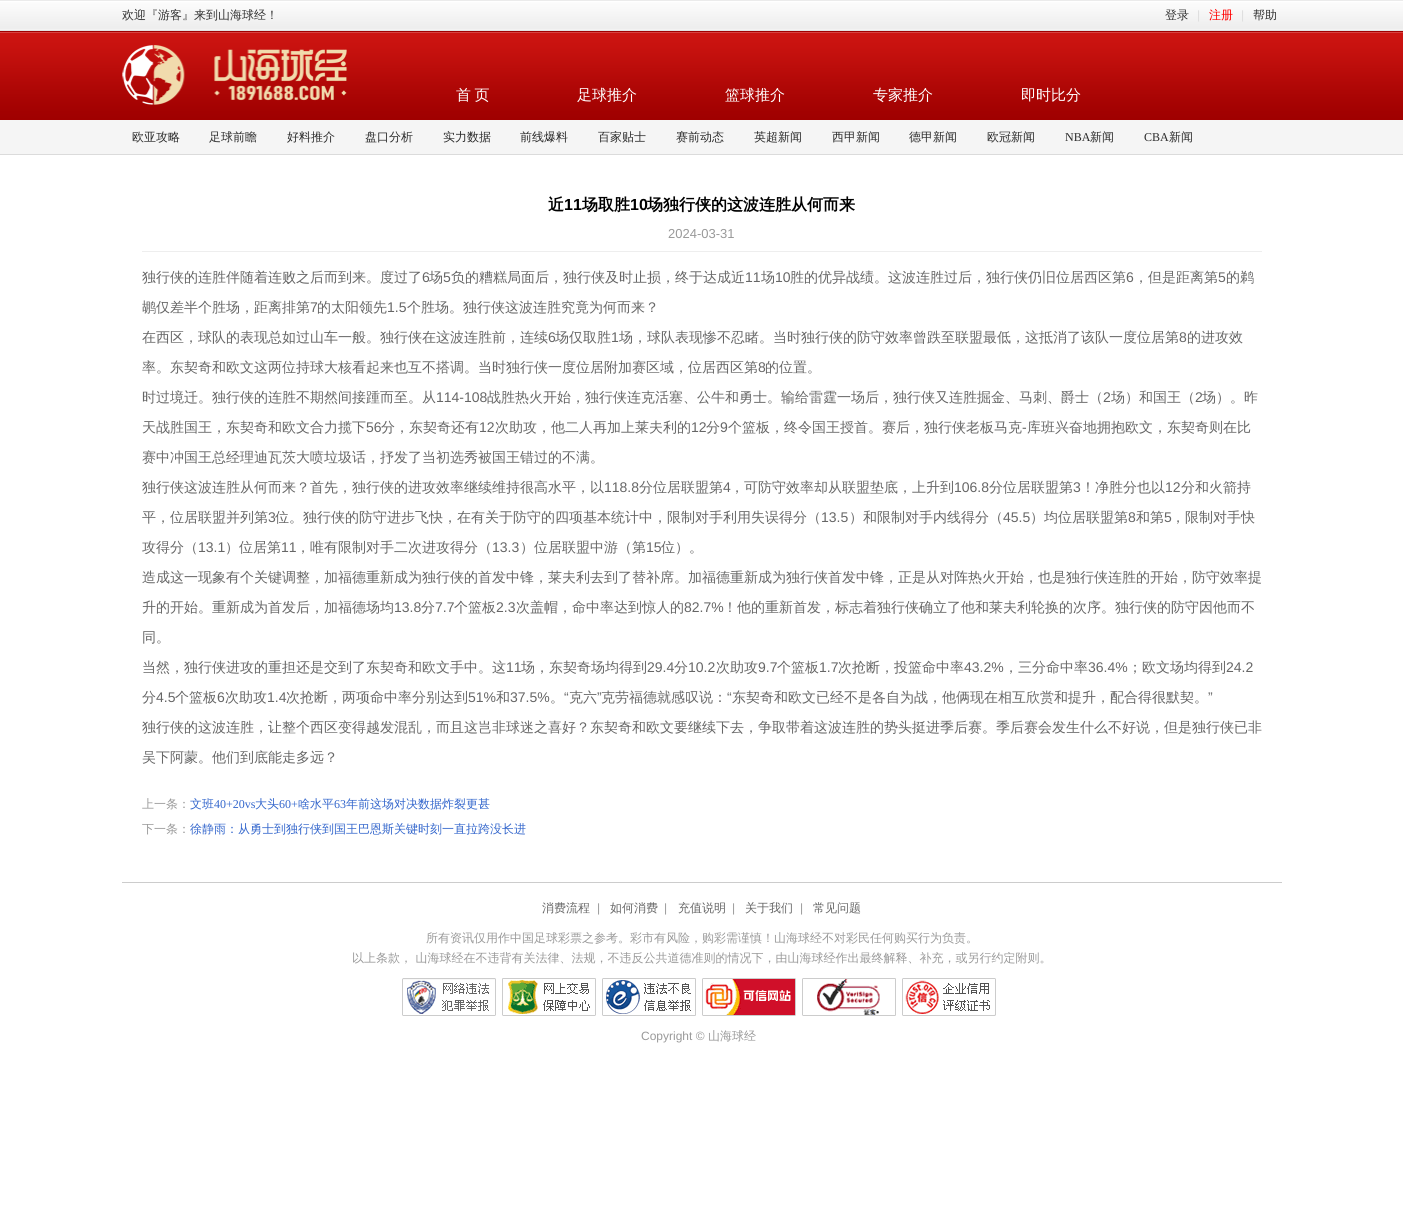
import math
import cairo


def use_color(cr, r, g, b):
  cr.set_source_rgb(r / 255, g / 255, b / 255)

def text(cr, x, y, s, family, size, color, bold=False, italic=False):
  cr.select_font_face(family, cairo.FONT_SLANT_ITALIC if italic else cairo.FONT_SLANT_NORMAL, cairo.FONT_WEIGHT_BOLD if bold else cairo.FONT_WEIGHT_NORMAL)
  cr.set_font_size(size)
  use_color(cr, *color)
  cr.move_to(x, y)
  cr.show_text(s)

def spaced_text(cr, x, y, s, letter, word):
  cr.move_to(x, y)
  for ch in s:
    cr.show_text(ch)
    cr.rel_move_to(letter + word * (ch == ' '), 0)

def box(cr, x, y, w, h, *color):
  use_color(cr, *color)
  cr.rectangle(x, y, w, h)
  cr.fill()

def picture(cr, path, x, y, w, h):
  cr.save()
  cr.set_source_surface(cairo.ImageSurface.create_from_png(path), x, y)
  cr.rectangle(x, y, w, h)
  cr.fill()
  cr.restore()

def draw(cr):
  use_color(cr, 255, 255, 255)
  cr.paint()
  picture(cr, "img_01.png", 0, 0, 1403, 120)
  picture(cr, "img_02.png", 122, 45, 225, 60)
  box(cr, 0, 120, 1403, 34, 245, 245, 245)
  box(cr, 0, 154, 1403, 1, 219, 219, 219)
  box(cr, 142, 251, 1120, 1, 238, 238, 238)
  box(cr, 122, 882, 1160, 1, 204, 204, 204)
  picture(cr, "img_03.png", 402, 978, 94, 38)
  picture(cr, "img_04.png", 502, 978, 94, 38)
  picture(cr, "img_05.png", 602, 978, 94, 38)
  picture(cr, "img_06.png", 702, 978, 94, 38)
  picture(cr, "img_07.png", 802, 978, 94, 38)
  picture(cr, "img_08.png", 902, 978, 94, 38)
  text(cr, 122, 19, "欢迎『游客』来到山海球经！", "WenQuanYi Zen Hei Medium", 12, (51, 51, 51))
  text(cr, 1165, 19, "登录", "WenQuanYi Zen Hei Medium", 12, (51, 51, 51))
  text(cr, 1197, 19, "|", "Liberation Sans", 12, (221, 221, 221))
  text(cr, 1209, 19, "注册", "WenQuanYi Zen Hei Medium", 12, (255, 0, 0))
  text(cr, 1241, 19, "|", "Liberation Sans", 12, (221, 221, 221))
  text(cr, 1253, 19, "帮助", "WenQuanYi Zen Hei Medium", 12, (51, 51, 51))
  cr.set_font_size(15)
  use_color(cr, 255, 255, 255)
  spaced_text(cr, 456, 100, "首 页", 0, -1)
  text(cr, 577, 100, "足球推介", "WenQuanYi Zen Hei Medium", 15, (255, 255, 255))
  text(cr, 725, 100, "篮球推介", "WenQuanYi Zen Hei Medium", 15, (255, 255, 255))
  text(cr, 873, 100, "专家推介", "WenQuanYi Zen Hei Medium", 15, (255, 255, 255))
  text(cr, 1021, 100, "即时比分", "WenQuanYi Zen Hei Medium", 15, (255, 255, 255))
  text(cr, 132, 141, "欧亚攻略", "WenQuanYi Zen Hei Medium", 12, (43, 43, 43))
  text(cr, 209, 141, "足球前瞻", "WenQuanYi Zen Hei Medium", 12, (43, 43, 43))
  text(cr, 287, 141, "好料推介", "WenQuanYi Zen Hei Medium", 12, (43, 43, 43))
  text(cr, 365, 141, "盘口分析", "WenQuanYi Zen Hei Medium", 12, (43, 43, 43))
  text(cr, 443, 141, "实力数据", "WenQuanYi Zen Hei Medium", 12, (43, 43, 43))
  text(cr, 520, 141, "前线爆料", "WenQuanYi Zen Hei Medium", 12, (43, 43, 43))
  text(cr, 598, 141, "百家贴士", "WenQuanYi Zen Hei Medium", 12, (43, 43, 43))
  text(cr, 676, 141, "赛前动态", "WenQuanYi Zen Hei Medium", 12, (43, 43, 43))
  text(cr, 754, 141, "英超新闻", "WenQuanYi Zen Hei Medium", 12, (43, 43, 43))
  text(cr, 832, 141, "西甲新闻", "WenQuanYi Zen Hei Medium", 12, (43, 43, 43))
  text(cr, 909, 141, "德甲新闻", "WenQuanYi Zen Hei Medium", 12, (43, 43, 43))
  text(cr, 987, 141, "欧冠新闻", "WenQuanYi Zen Hei Medium", 12, (43, 43, 43))
  text(cr, 1065, 141, "NBA", "Liberation Serif", 12, (43, 43, 43))
  text(cr, 1090, 141, "新闻", "WenQuanYi Zen Hei Medium", 12, (43, 43, 43))
  text(cr, 1144, 141, "CBA", "Liberation Serif", 12, (43, 43, 43))
  text(cr, 1169, 141, "新闻", "WenQuanYi Zen Hei Medium", 12, (43, 43, 43))
  text(cr, 548, 210, "近", "WenQuanYi Zen Hei", 16, (0, 0, 0), bold=True)
  text(cr, 564, 210, "11", "Liberation Sans", 16, (0, 0, 0), bold=True)
  text(cr, 582, 210, "场取胜", "WenQuanYi Zen Hei", 16, (0, 0, 0), bold=True)
  text(cr, 630, 210, "10", "Liberation Sans", 16, (0, 0, 0), bold=True)
  text(cr, 647, 210, "场独行侠的这波连胜从何而来", "WenQuanYi Zen Hei", 16, (0, 0, 0), bold=True)
  text(cr, 668, 238, "2024-03-31", "Liberation Sans", 13, (153, 153, 153))
  text(cr, 142, 282, "独行侠的连胜伴随着连败之后而到来。度过了", "WenQuanYi Zen Hei Medium", 14, (102, 102, 102))
  text(cr, 422, 282, "6", "Liberation Sans", 14, (102, 102, 102))
  text(cr, 429, 282, "场", "WenQuanYi Zen Hei Medium", 14, (102, 102, 102))
  text(cr, 443, 282, "5", "Liberation Sans", 14, (102, 102, 102))
  text(cr, 451, 282, "负的糟糕局面后，独行侠及时止损，终于达成近", "WenQuanYi Zen Hei Medium", 14, (102, 102, 102))
  text(cr, 745, 282, "11", "Liberation Sans", 14, (102, 102, 102))
  text(cr, 761, 282, "场", "WenQuanYi Zen Hei Medium", 14, (102, 102, 102))
  text(cr, 775, 282, "10", "Liberation Sans", 14, (102, 102, 102))
  text(cr, 790, 282, "胜的优异战绩。这波连胜过后，独行侠仍旧位居西区第", "WenQuanYi Zen Hei Medium", 14, (102, 102, 102))
  text(cr, 1126, 282, "6", "Liberation Sans", 14, (102, 102, 102))
  text(cr, 1134, 282, "，但是距离第", "WenQuanYi Zen Hei Medium", 14, (102, 102, 102))
  text(cr, 1218, 282, "5", "Liberation Sans", 14, (102, 102, 102))
  text(cr, 1226, 282, "的鹈", "WenQuanYi Zen Hei Medium", 14, (102, 102, 102))
  text(cr, 142, 312, "鹕仅差半个胜场，距离排第", "WenQuanYi Zen Hei Medium", 14, (102, 102, 102))
  text(cr, 310, 312, "7", "Liberation Sans", 14, (102, 102, 102))
  text(cr, 317, 312, "的太阳领先", "WenQuanYi Zen Hei Medium", 14, (102, 102, 102))
  text(cr, 387, 312, "1.5", "Liberation Sans", 14, (102, 102, 102))
  text(cr, 407, 312, "个胜场。独行侠这波连胜究竟为何而来？", "WenQuanYi Zen Hei Medium", 14, (102, 102, 102))
  text(cr, 142, 342, "在西区，球队的表现总如过山车一般。独行侠在这波连胜前，连续", "WenQuanYi Zen Hei Medium", 14, (102, 102, 102))
  text(cr, 548, 342, "6", "Liberation Sans", 14, (102, 102, 102))
  text(cr, 555, 342, "场仅取胜", "WenQuanYi Zen Hei Medium", 14, (102, 102, 102))
  text(cr, 611, 342, "1", "Liberation Sans", 14, (102, 102, 102))
  text(cr, 619, 342, "场，球队表现惨不忍睹。当时独行侠的防守效率曾跌至联盟最低，这抵消了该队一度位居第", "WenQuanYi Zen Hei Medium", 14, (102, 102, 102))
  text(cr, 1179, 342, "8", "Liberation Sans", 14, (102, 102, 102))
  text(cr, 1187, 342, "的进攻效", "WenQuanYi Zen Hei Medium", 14, (102, 102, 102))
  text(cr, 142, 372, "率。东契奇和欧文这两位持球大核看起来也互不搭调。当时独行侠一度位居附加赛区域，位居西区第", "WenQuanYi Zen Hei Medium", 14, (102, 102, 102))
  text(cr, 758, 372, "8", "Liberation Sans", 14, (102, 102, 102))
  text(cr, 765, 372, "的位置。", "WenQuanYi Zen Hei Medium", 14, (102, 102, 102))
  text(cr, 142, 402, "时过境迁。独行侠的连胜不期然间接踵而至。从", "WenQuanYi Zen Hei Medium", 14, (102, 102, 102))
  text(cr, 436, 402, "114-108", "Liberation Sans", 14, (102, 102, 102))
  text(cr, 487, 402, "战胜热火开始，独行侠连克活塞、公牛和勇士。输给雷霆一场后，独行侠又连胜掘金、马刺、爵士（", "WenQuanYi Zen Hei Medium", 14, (102, 102, 102))
  text(cr, 1103, 402, "2", "Liberation Sans", 14, (102, 102, 102))
  text(cr, 1111, 402, "场）和国王（", "WenQuanYi Zen Hei Medium", 14, (102, 102, 102))
  text(cr, 1195, 402, "2", "Liberation Sans", 14, (102, 102, 102))
  text(cr, 1202, 402, "场）。昨", "WenQuanYi Zen Hei Medium", 14, (102, 102, 102))
  text(cr, 142, 432, "天战胜国王，东契奇和欧文合力揽下", "WenQuanYi Zen Hei Medium", 14, (102, 102, 102))
  text(cr, 366, 432, "56", "Liberation Sans", 14, (102, 102, 102))
  text(cr, 381, 432, "分，东契奇还有", "WenQuanYi Zen Hei Medium", 14, (102, 102, 102))
  text(cr, 479, 432, "12", "Liberation Sans", 14, (102, 102, 102))
  text(cr, 495, 432, "次助攻，他二人再加上莱夫利的", "WenQuanYi Zen Hei Medium", 14, (102, 102, 102))
  text(cr, 691, 432, "12", "Liberation Sans", 14, (102, 102, 102))
  text(cr, 706, 432, "分", "WenQuanYi Zen Hei Medium", 14, (102, 102, 102))
  text(cr, 720, 432, "9", "Liberation Sans", 14, (102, 102, 102))
  text(cr, 728, 432, "个篮板，终令国王授首。赛后，独行侠老板马克", "WenQuanYi Zen Hei Medium", 14, (102, 102, 102))
  text(cr, 1022, 432, "-", "Liberation Sans", 14, (102, 102, 102))
  text(cr, 1027, 432, "库班兴奋地拥抱欧文，东契奇则在比", "WenQuanYi Zen Hei Medium", 14, (102, 102, 102))
  text(cr, 142, 462, "赛中冲国王总经理迪瓦茨大喷垃圾话，抒发了当初选秀被国王错过的不满。", "WenQuanYi Zen Hei Medium", 14, (102, 102, 102))
  text(cr, 142, 492, "独行侠这波连胜从何而来？首先，独行侠的进攻效率继续维持很高水平，以", "WenQuanYi Zen Hei Medium", 14, (102, 102, 102))
  text(cr, 604, 492, "118.8", "Liberation Sans", 14, (102, 102, 102))
  text(cr, 639, 492, "分位居联盟第", "WenQuanYi Zen Hei Medium", 14, (102, 102, 102))
  text(cr, 723, 492, "4", "Liberation Sans", 14, (102, 102, 102))
  text(cr, 730, 492, "，可防守效率却从联盟垫底，上升到", "WenQuanYi Zen Hei Medium", 14, (102, 102, 102))
  text(cr, 954, 492, "106.8", "Liberation Sans", 14, (102, 102, 102))
  text(cr, 989, 492, "分位居联盟第", "WenQuanYi Zen Hei Medium", 14, (102, 102, 102))
  text(cr, 1073, 492, "3", "Liberation Sans", 14, (102, 102, 102))
  text(cr, 1081, 492, "！净胜分也以", "WenQuanYi Zen Hei Medium", 14, (102, 102, 102))
  text(cr, 1165, 492, "12", "Liberation Sans", 14, (102, 102, 102))
  text(cr, 1181, 492, "分和火箭持", "WenQuanYi Zen Hei Medium", 14, (102, 102, 102))
  text(cr, 142, 522, "平，位居联盟并列第", "WenQuanYi Zen Hei Medium", 14, (102, 102, 102))
  text(cr, 268, 522, "3", "Liberation Sans", 14, (102, 102, 102))
  text(cr, 275, 522, "位。独行侠的防守进步飞快，在有关于防守的四项基本统计中，限制对手利用失误得分（", "WenQuanYi Zen Hei Medium", 14, (102, 102, 102))
  text(cr, 821, 522, "13.5", "Liberation Sans", 14, (102, 102, 102))
  text(cr, 849, 522, "）和限制对手内线得分（", "WenQuanYi Zen Hei Medium", 14, (102, 102, 102))
  text(cr, 1003, 522, "45.5", "Liberation Sans", 14, (102, 102, 102))
  text(cr, 1030, 522, "）均位居联盟第", "WenQuanYi Zen Hei Medium", 14, (102, 102, 102))
  text(cr, 1128, 522, "8", "Liberation Sans", 14, (102, 102, 102))
  text(cr, 1136, 522, "和第", "WenQuanYi Zen Hei Medium", 14, (102, 102, 102))
  text(cr, 1164, 522, "5", "Liberation Sans", 14, (102, 102, 102))
  text(cr, 1171, 522, "，限制对手快", "WenQuanYi Zen Hei Medium", 14, (102, 102, 102))
  text(cr, 142, 552, "攻得分（", "WenQuanYi Zen Hei Medium", 14, (102, 102, 102))
  text(cr, 198, 552, "13.1", "Liberation Sans", 14, (102, 102, 102))
  text(cr, 225, 552, "）位居第", "WenQuanYi Zen Hei Medium", 14, (102, 102, 102))
  text(cr, 281, 552, "11", "Liberation Sans", 14, (102, 102, 102))
  text(cr, 296, 552, "，唯有限制对手二次进攻得分（", "WenQuanYi Zen Hei Medium", 14, (102, 102, 102))
  text(cr, 492, 552, "13.3", "Liberation Sans", 14, (102, 102, 102))
  text(cr, 520, 552, "）位居联盟中游（第", "WenQuanYi Zen Hei Medium", 14, (102, 102, 102))
  text(cr, 646, 552, "15", "Liberation Sans", 14, (102, 102, 102))
  text(cr, 661, 552, "位）。", "WenQuanYi Zen Hei Medium", 14, (102, 102, 102))
  text(cr, 142, 582, "造成这一现象有个关键调整，加福德重新成为独行侠的首发中锋，莱夫利去到了替补席。加福德重新成为独行侠首发中锋，正是从对阵热火开始，也是独行侠连胜的开始，防守效率提", "WenQuanYi Zen Hei Medium", 14, (102, 102, 102))
  text(cr, 142, 612, "升的开始。重新成为首发后，加福德场均", "WenQuanYi Zen Hei Medium", 14, (102, 102, 102))
  text(cr, 394, 612, "13.8", "Liberation Sans", 14, (102, 102, 102))
  text(cr, 421, 612, "分", "WenQuanYi Zen Hei Medium", 14, (102, 102, 102))
  text(cr, 435, 612, "7.7", "Liberation Sans", 14, (102, 102, 102))
  text(cr, 454, 612, "个篮板", "WenQuanYi Zen Hei Medium", 14, (102, 102, 102))
  text(cr, 496, 612, "2.3", "Liberation Sans", 14, (102, 102, 102))
  text(cr, 516, 612, "次盖帽，命中率达到惊人的", "WenQuanYi Zen Hei Medium", 14, (102, 102, 102))
  text(cr, 684, 612, "82.7%", "Liberation Sans", 14, (102, 102, 102))
  text(cr, 723, 612, "！他的重新首发，标志着独行侠确立了他和莱夫利轮换的次序。独行侠的防守因他而不", "WenQuanYi Zen Hei Medium", 14, (102, 102, 102))
  text(cr, 142, 642, "同。", "WenQuanYi Zen Hei Medium", 14, (102, 102, 102))
  text(cr, 142, 672, "当然，独行侠进攻的重担还是交到了东契奇和欧文手中。这", "WenQuanYi Zen Hei Medium", 14, (102, 102, 102))
  text(cr, 506, 672, "11", "Liberation Sans", 14, (102, 102, 102))
  text(cr, 521, 672, "场，东契奇场均得到", "WenQuanYi Zen Hei Medium", 14, (102, 102, 102))
  text(cr, 647, 672, "29.4", "Liberation Sans", 14, (102, 102, 102))
  text(cr, 674, 672, "分", "WenQuanYi Zen Hei Medium", 14, (102, 102, 102))
  text(cr, 688, 672, "10.2", "Liberation Sans", 14, (102, 102, 102))
  text(cr, 716, 672, "次助攻", "WenQuanYi Zen Hei Medium", 14, (102, 102, 102))
  text(cr, 758, 672, "9.7", "Liberation Sans", 14, (102, 102, 102))
  text(cr, 777, 672, "个篮板", "WenQuanYi Zen Hei Medium", 14, (102, 102, 102))
  text(cr, 819, 672, "1.7", "Liberation Sans", 14, (102, 102, 102))
  text(cr, 838, 672, "次抢断，投篮命中率", "WenQuanYi Zen Hei Medium", 14, (102, 102, 102))
  text(cr, 964, 672, "43.2%", "Liberation Sans", 14, (102, 102, 102))
  text(cr, 1004, 672, "，三分命中率", "WenQuanYi Zen Hei Medium", 14, (102, 102, 102))
  text(cr, 1088, 672, "36.4%", "Liberation Sans", 14, (102, 102, 102))
  text(cr, 1128, 672, "；欧文场均得到", "WenQuanYi Zen Hei Medium", 14, (102, 102, 102))
  text(cr, 1226, 672, "24.2", "Liberation Sans", 14, (102, 102, 102))
  text(cr, 142, 702, "分", "WenQuanYi Zen Hei Medium", 14, (102, 102, 102))
  text(cr, 156, 702, "4.5", "Liberation Sans", 14, (102, 102, 102))
  text(cr, 175, 702, "个篮板", "WenQuanYi Zen Hei Medium", 14, (102, 102, 102))
  text(cr, 217, 702, "6", "Liberation Sans", 14, (102, 102, 102))
  text(cr, 225, 702, "次助攻", "WenQuanYi Zen Hei Medium", 14, (102, 102, 102))
  text(cr, 267, 702, "1.4", "Liberation Sans", 14, (102, 102, 102))
  text(cr, 286, 702, "次抢断，两项命中率分别达到", "WenQuanYi Zen Hei Medium", 14, (102, 102, 102))
  text(cr, 468, 702, "51%", "Liberation Sans", 14, (102, 102, 102))
  text(cr, 496, 702, "和", "WenQuanYi Zen Hei Medium", 14, (102, 102, 102))
  text(cr, 510, 702, "37.5%", "Liberation Sans", 14, (102, 102, 102))
  text(cr, 564, 702, "“", "Liberation Sans", 14, (102, 102, 102))
  text(cr, 569, 702, "克六", "WenQuanYi Zen Hei Medium", 14, (102, 102, 102))
  text(cr, 597, 702, "”", "Liberation Sans", 14, (102, 102, 102))
  text(cr, 601, 702, "克劳福德就感叹说：", "WenQuanYi Zen Hei Medium", 14, (102, 102, 102))
  text(cr, 727, 702, "“", "Liberation Sans", 14, (102, 102, 102))
  text(cr, 732, 702, "东契奇和欧文已经不是各自为战，他俩现在相互欣赏和提升，配合得很默契。", "WenQuanYi Zen Hei Medium", 14, (102, 102, 102))
  text(cr, 1208, 702, "”", "Liberation Sans", 14, (102, 102, 102))
  text(cr, 550, 702, "。", "WenQuanYi Zen Hei Medium", 14, (102, 102, 102))
  text(cr, 142, 732, "独行侠的这波连胜，让整个西区变得越发混乱，而且这岂非球迷之喜好？东契奇和欧文要继续下去，争取带着这波连胜的势头挺进季后赛。季后赛会发生什么不好说，但是独行侠已非", "WenQuanYi Zen Hei Medium", 14, (102, 102, 102))
  text(cr, 142, 762, "吴下阿蒙。他们到底能走多远？", "WenQuanYi Zen Hei Medium", 14, (102, 102, 102))
  text(cr, 142, 808, "上一条：", "WenQuanYi Zen Hei Medium", 12, (153, 153, 153))
  text(cr, 190, 808, "文班", "WenQuanYi Zen Hei Medium", 12, (51, 102, 204))
  text(cr, 214, 808, "40+20vs", "Liberation Serif", 12, (51, 102, 204))
  text(cr, 255, 808, "大头", "WenQuanYi Zen Hei Medium", 12, (51, 102, 204))
  text(cr, 279, 808, "60+", "Liberation Serif", 12, (51, 102, 204))
  text(cr, 298, 808, "啥水平", "WenQuanYi Zen Hei Medium", 12, (51, 102, 204))
  text(cr, 334, 808, "63", "Liberation Serif", 12, (51, 102, 204))
  text(cr, 346, 808, "年前这场对决数据炸裂更甚", "WenQuanYi Zen Hei Medium", 12, (51, 102, 204))
  text(cr, 142, 833, "下一条：", "WenQuanYi Zen Hei Medium", 12, (153, 153, 153))
  text(cr, 190, 833, "徐静雨：从勇士到独行侠到国王巴恩斯关键时刻一直拉跨没长进", "WenQuanYi Zen Hei Medium", 12, (51, 102, 204))
  text(cr, 542, 912, "消费流程", "WenQuanYi Zen Hei Medium", 12, (102, 102, 102))
  text(cr, 597, 912, "|", "Liberation Sans", 12, (153, 153, 153))
  text(cr, 610, 912, "如何消费", "WenQuanYi Zen Hei Medium", 12, (102, 102, 102))
  text(cr, 664, 912, "|", "Liberation Sans", 12, (153, 153, 153))
  text(cr, 678, 912, "充值说明", "WenQuanYi Zen Hei Medium", 12, (102, 102, 102))
  text(cr, 732, 912, "|", "Liberation Sans", 12, (153, 153, 153))
  text(cr, 745, 912, "关于我们", "WenQuanYi Zen Hei Medium", 12, (102, 102, 102))
  text(cr, 800, 912, "|", "Liberation Sans", 12, (153, 153, 153))
  text(cr, 813, 912, "常见问题", "WenQuanYi Zen Hei Medium", 12, (102, 102, 102))
  text(cr, 426, 942, "所有资讯仅用作中国足球彩票之参考。彩市有风险，购彩需谨慎！山海球经不对彩民任何购买行为负责。", "WenQuanYi Zen Hei Medium", 12, (153, 153, 153))
  text(cr, 352, 962, "以上条款， 山海球经在不违背有关法律、法规，不违反公共道德准则的情况下，由山海球经作出最终解释、补充，或另行约定附则。", "WenQuanYi Zen Hei Medium", 12, (153, 153, 153))
  text(cr, 641, 1040, "Copyright ©", "Liberation Sans", 12, (153, 153, 153))
  text(cr, 708, 1040, "山海球经", "WenQuanYi Zen Hei Medium", 12, (153, 153, 153))


surface = cairo.ImageSurface(cairo.FORMAT_RGB24, 1403, 1210)
cr = cairo.Context(surface)
options = cairo.FontOptions()
options.set_hint_metrics(cairo.HINT_METRICS_OFF)
options.set_hint_style(cairo.HINT_STYLE_NONE)
cr.set_font_options(options)
cr.set_miter_limit(4)
draw(cr)
surface.write_to_png("out.png")
